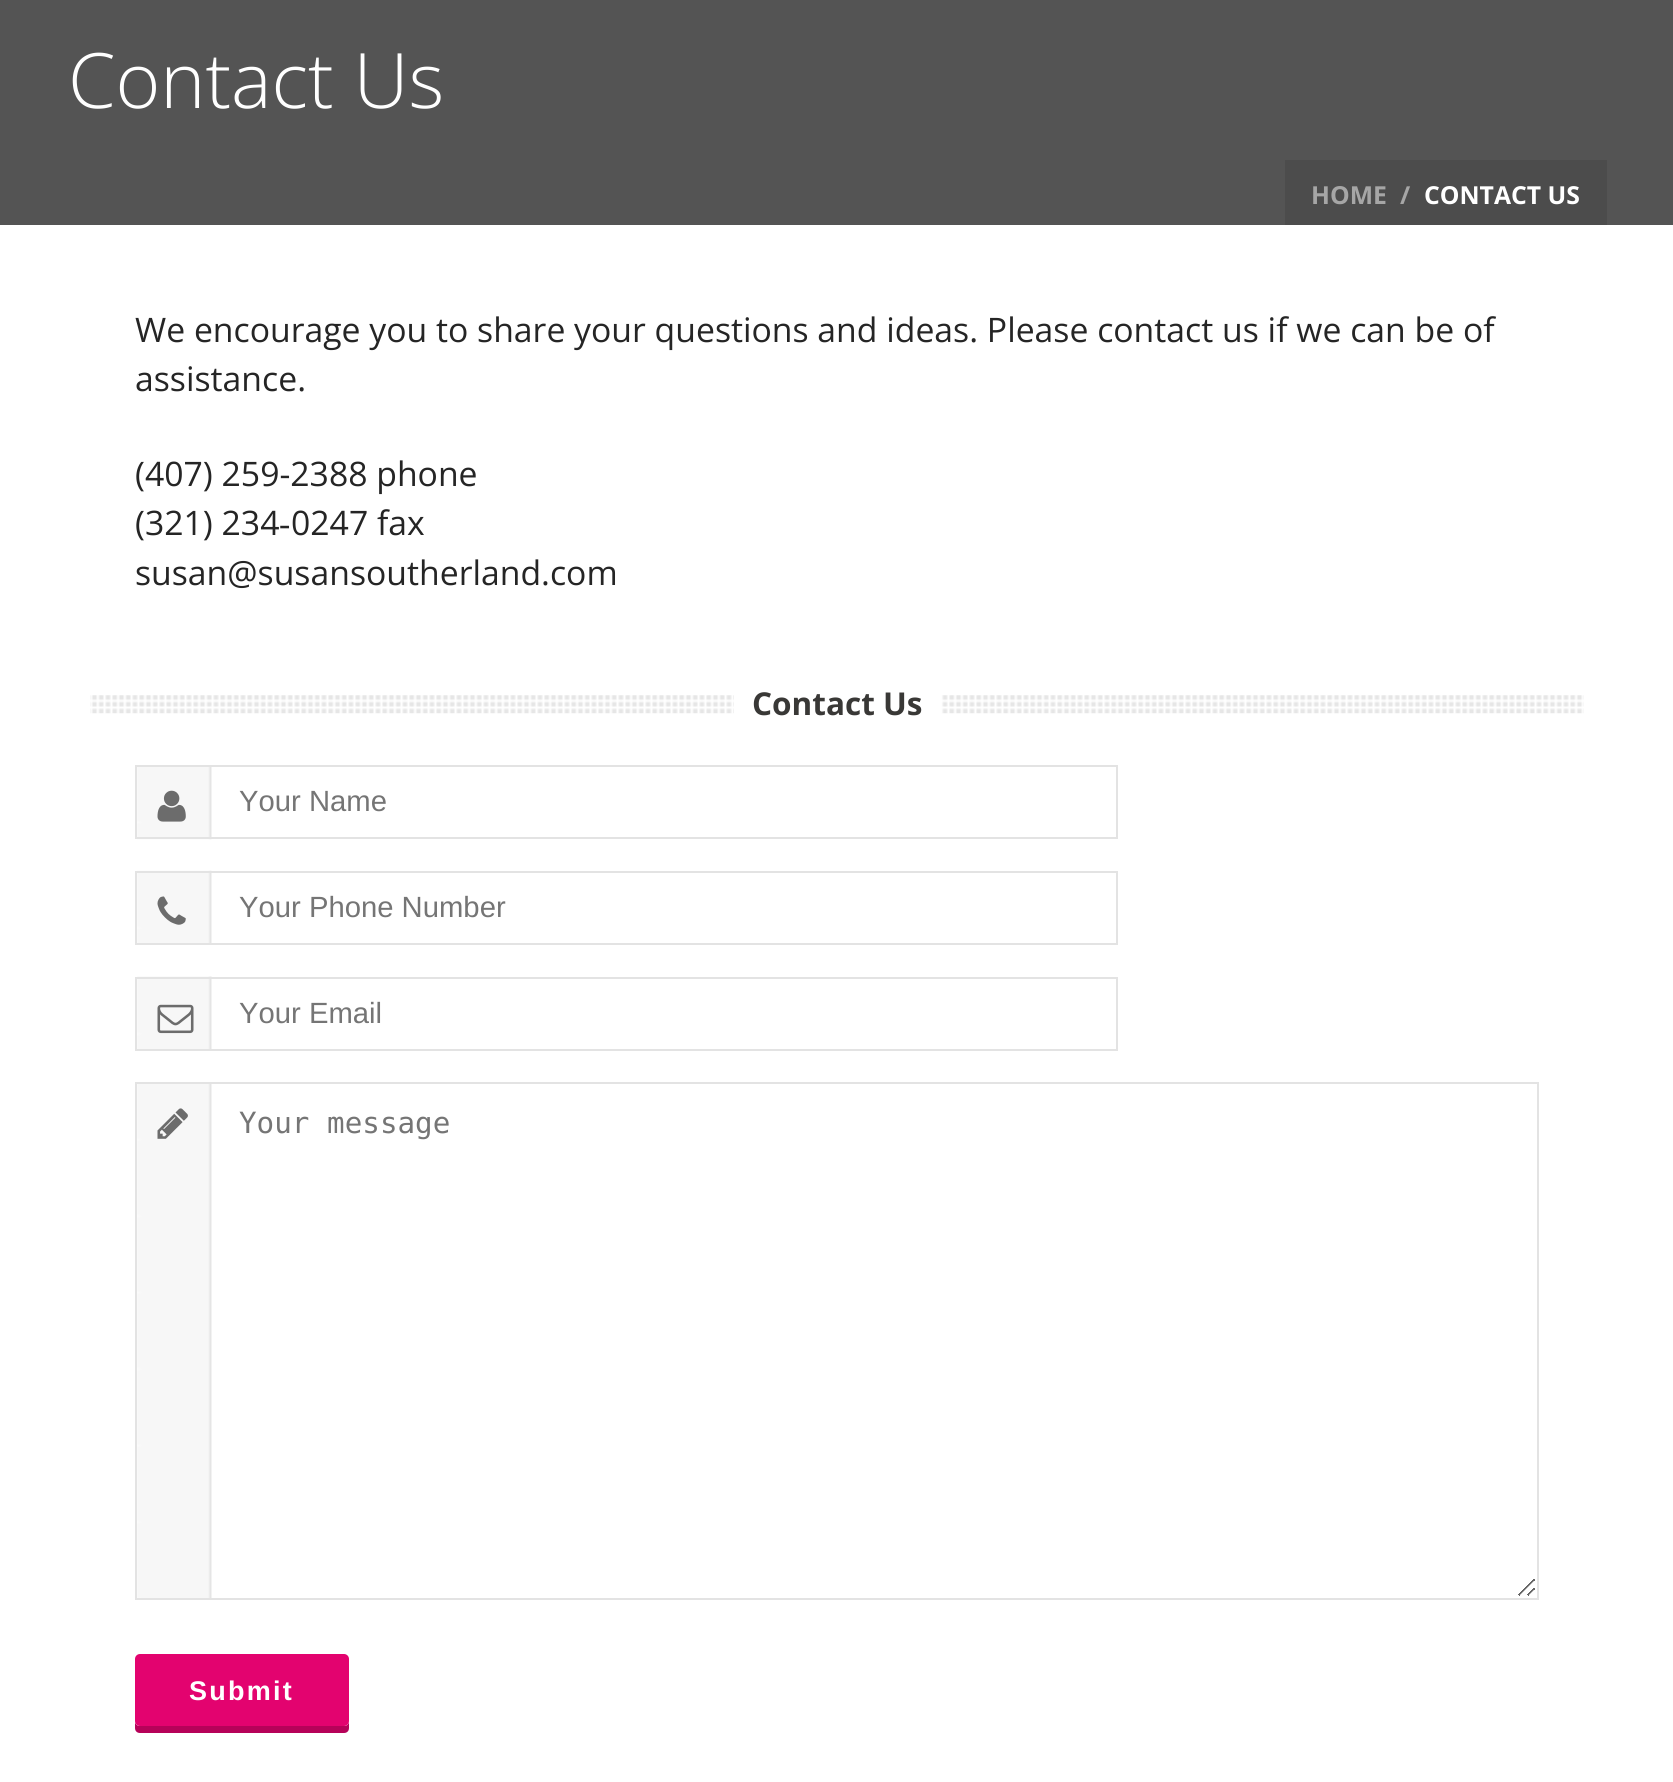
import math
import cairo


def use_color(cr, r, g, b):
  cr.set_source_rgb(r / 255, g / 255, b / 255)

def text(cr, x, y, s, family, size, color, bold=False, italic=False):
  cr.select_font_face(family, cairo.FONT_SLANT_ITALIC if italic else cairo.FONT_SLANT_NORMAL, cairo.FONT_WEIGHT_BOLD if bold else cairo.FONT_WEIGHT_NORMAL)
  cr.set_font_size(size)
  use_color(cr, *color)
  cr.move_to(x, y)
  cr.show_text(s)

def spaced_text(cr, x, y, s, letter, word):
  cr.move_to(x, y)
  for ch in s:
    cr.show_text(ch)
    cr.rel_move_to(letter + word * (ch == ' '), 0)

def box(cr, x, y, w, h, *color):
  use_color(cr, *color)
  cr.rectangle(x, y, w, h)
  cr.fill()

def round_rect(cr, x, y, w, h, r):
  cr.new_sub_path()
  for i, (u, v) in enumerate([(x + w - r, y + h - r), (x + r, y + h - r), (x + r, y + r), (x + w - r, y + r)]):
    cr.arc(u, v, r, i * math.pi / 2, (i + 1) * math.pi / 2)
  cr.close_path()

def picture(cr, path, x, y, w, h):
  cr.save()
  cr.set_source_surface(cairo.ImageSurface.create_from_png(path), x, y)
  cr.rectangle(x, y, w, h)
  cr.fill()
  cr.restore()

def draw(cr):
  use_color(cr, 255, 255, 255)
  cr.paint()
  box(cr, 0, 0, 1673, 225, 84, 84, 84)
  box(cr, 1285, 160, 322, 65, 76, 76, 76)
  picture(cr, "img_01.png", 90, 695, 1494, 19)
  box(cr, 734, 695, 207, 19, 255, 255, 255)
  picture(cr, "img_03.png", 137, 767, 75, 73)
  cr.rectangle(136, 766, 981, 72)
  use_color(cr, 227, 227, 227)
  cr.stroke()
  picture(cr, "img_02.png", 157, 790, 29, 32)
  picture(cr, "img_05.png", 137, 870, 75, 73)
  cr.rectangle(136, 872, 981, 72)
  cr.stroke()
  picture(cr, "img_04.png", 157, 896, 29, 29)
  picture(cr, "img_07.png", 137, 976, 75, 73)
  cr.rectangle(136, 978, 981, 72)
  cr.stroke()
  picture(cr, "img_06.png", 157, 1004, 37, 30)
  picture(cr, "img_09.png", 137, 1084, 1398, 514)
  cr.rectangle(136, 1083, 1402, 516)
  cr.stroke()
  picture(cr, "img_08.png", 157, 1108, 31, 31)
  use_color(cr, 182, 2, 89)
  cr.new_path()
  cr.move_to(135, 1721)
  cr.line_to(135, 1728)
  cr.curve_to(135, 1731, 137, 1733, 140, 1733)
  cr.line_to(344, 1733)
  cr.curve_to(347, 1733, 349, 1731, 349, 1728)
  cr.line_to(349, 1664)
  cr.line_to(349, 1721)
  cr.curve_to(349, 1724, 347, 1726, 344, 1726)
  cr.line_to(140, 1726)
  cr.curve_to(137, 1726, 135, 1724, 135, 1721)
  cr.close_path()
  cr.fill()
  use_color(cr, 227, 3, 111)
  round_rect(cr, 135, 1654, 214, 72, 5)
  cr.fill()
  text(cr, 68, 108, "Contact Us", "Open Sans Light", 76.5, (255, 255, 255))
  text(cr, 1311, 204, "HOME", "Open Sans", 24.75, (166, 166, 166), bold=True)
  text(cr, 1400, 204, "/", "Open Sans", 24.75, (166, 166, 166), bold=True)
  text(cr, 1424, 204, "CONTACT US", "Open Sans", 24.75, (255, 255, 255), bold=True)
  text(cr, 135, 342, "We encourage you to share your questions and ideas. Please contact us if we can be of", "Open Sans", 33.75, (37, 37, 37))
  text(cr, 135, 391, "assistance.", "Open Sans", 33.75, (37, 37, 37))
  text(cr, 135, 486, "(407) 259-2388 phone", "Open Sans", 33.75, (37, 37, 37))
  text(cr, 135, 535, "(321) 234", "Open Sans", 33.75, (37, 37, 37))
  text(cr, 279, 535, "‐", "Liberation Serif", 33.75, (37, 37, 37))
  text(cr, 291, 535, "0247 fax", "Open Sans", 33.75, (37, 37, 37))
  text(cr, 135, 585, "susan@susansoutherland.com", "Open Sans", 33.75, (37, 37, 37))
  text(cr, 752, 715, "Contact Us", "Open Sans", 31.5, (57, 56, 54), bold=True)
  text(cr, 239, 811, "Your Name", "Liberation Sans", 29.25, (117, 117, 117))
  text(cr, 239, 917, "Your Phone Number", "Liberation Sans", 29.25, (117, 117, 117))
  text(cr, 239, 1023, "Your Email", "Liberation Sans", 29.25, (117, 117, 117))
  text(cr, 239, 1133, "Your message", "DejaVu Sans Mono", 29.25, (117, 117, 117))
  cr.select_font_face("Liberation Sans", cairo.FONT_SLANT_NORMAL, cairo.FONT_WEIGHT_BOLD)
  cr.set_font_size(27)
  use_color(cr, 255, 255, 255)
  spaced_text(cr, 189, 1700, "Submit", 2.25, 0)


surface = cairo.ImageSurface(cairo.FORMAT_RGB24, 1673, 1782)
cr = cairo.Context(surface)
options = cairo.FontOptions()
options.set_hint_metrics(cairo.HINT_METRICS_OFF)
options.set_hint_style(cairo.HINT_STYLE_NONE)
cr.set_font_options(options)
cr.set_miter_limit(4)
draw(cr)
surface.write_to_png("out.png")
